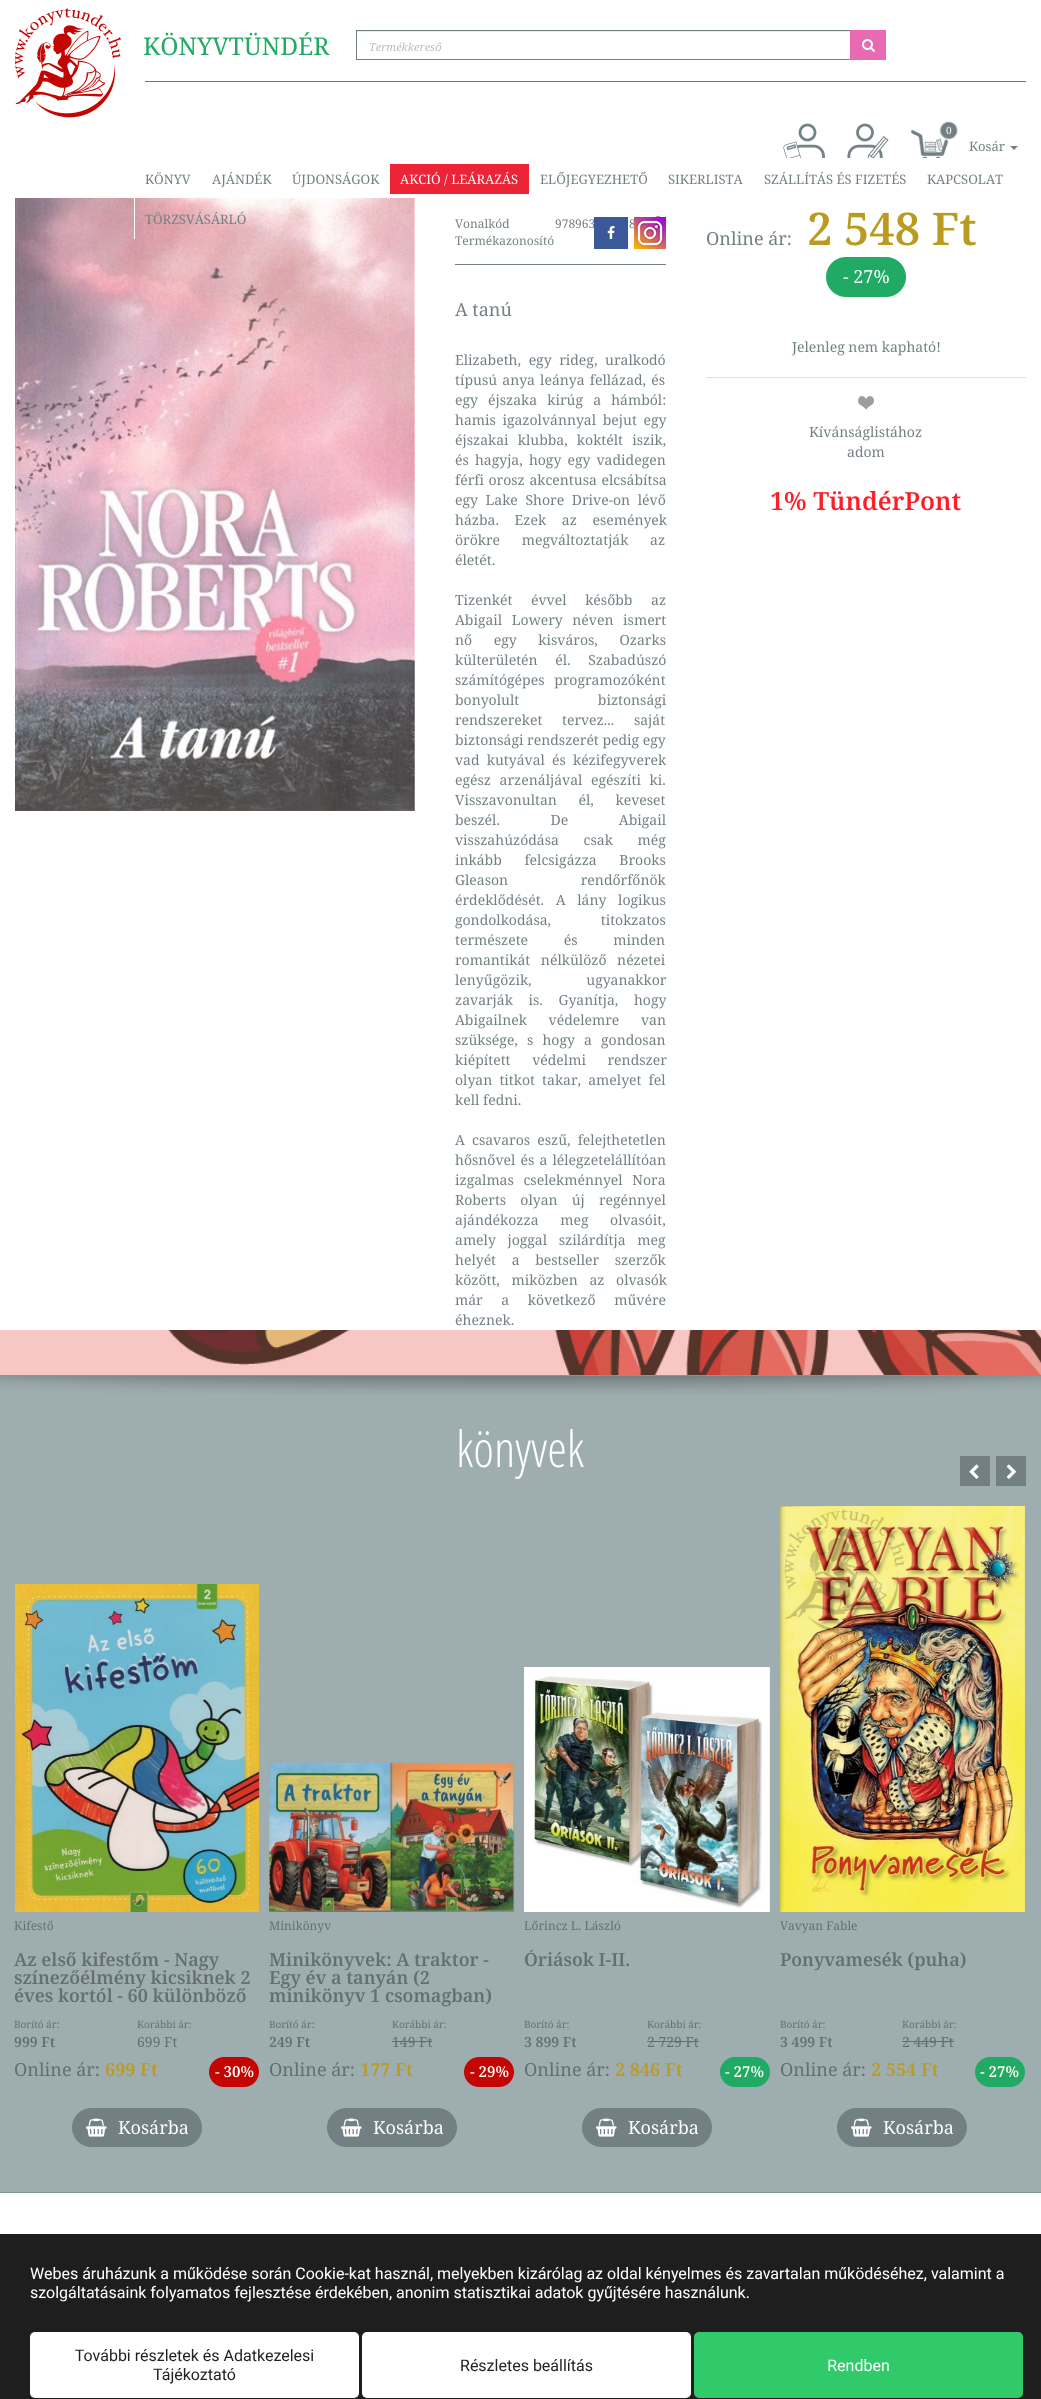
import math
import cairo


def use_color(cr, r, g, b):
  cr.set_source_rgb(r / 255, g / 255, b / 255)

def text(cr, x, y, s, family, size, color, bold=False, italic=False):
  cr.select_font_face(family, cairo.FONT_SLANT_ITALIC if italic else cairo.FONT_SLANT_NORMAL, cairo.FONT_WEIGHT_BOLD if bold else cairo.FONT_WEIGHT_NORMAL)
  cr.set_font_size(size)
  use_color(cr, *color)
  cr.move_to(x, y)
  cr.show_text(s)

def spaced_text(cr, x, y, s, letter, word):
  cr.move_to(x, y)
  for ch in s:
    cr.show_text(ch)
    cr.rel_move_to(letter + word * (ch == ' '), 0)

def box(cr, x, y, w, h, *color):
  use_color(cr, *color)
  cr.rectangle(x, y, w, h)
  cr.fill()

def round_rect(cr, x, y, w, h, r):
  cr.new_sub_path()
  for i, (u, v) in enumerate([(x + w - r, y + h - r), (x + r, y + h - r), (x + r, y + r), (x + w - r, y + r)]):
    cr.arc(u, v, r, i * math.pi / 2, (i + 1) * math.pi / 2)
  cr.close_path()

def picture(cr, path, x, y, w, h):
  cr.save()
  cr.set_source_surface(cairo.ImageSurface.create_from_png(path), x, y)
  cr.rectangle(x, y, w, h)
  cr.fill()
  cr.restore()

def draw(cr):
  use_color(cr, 255, 255, 255)
  cr.paint()
  picture(cr, "img_01.png", 0, 1330, 1041, 45)
  picture(cr, "img_02.png", 15, 8, 106, 110)
  box(cr, 357, 31, 494, 1, 236, 236, 236)
  box(cr, 356, 30, 495, 1, 114, 128, 131)
  box(cr, 356, 59, 495, 1, 114, 128, 131)
  box(cr, 356, 30, 1, 30, 114, 128, 131)
  box(cr, 850, 30, 36, 30, 232, 106, 180)
  picture(cr, "img_03.png", 862, 39, 13, 13)
  picture(cr, "img_04.png", 783, 123, 42, 35)
  picture(cr, "img_05.png", 847, 123, 42, 35)
  picture(cr, "img_06.png", 911, 121, 47, 37)
  use_color(cr, 114, 128, 131)
  cr.new_path()
  cr.move_to(1010, 146)
  cr.line_to(1018, 146)
  cr.line_to(1014, 150)
  cr.close_path()
  cr.fill()
  box(cr, 145, 81, 881, 1, 106, 116, 119)
  picture(cr, "img_07.png", 15, 198, 400, 613)
  box(cr, 134, 198, 1, 41, 255, 255, 255)
  box(cr, 201, 198, 1, 1, 255, 255, 255)
  box(cr, 281, 198, 1, 1, 255, 255, 255)
  box(cr, 389, 198, 1, 1, 255, 255, 255)
  box(cr, 390, 164, 139, 30, 236, 36, 54)
  picture(cr, "img_10.png", 655, 216, 6, 1)
  box(cr, 455, 264, 211, 1, 114, 128, 131)
  use_color(cr, 32, 170, 99)
  round_rect(cr, 826, 257, 80, 40, 20)
  cr.fill()
  box(cr, 706, 377, 320, 1, 221, 221, 221)
  picture(cr, "img_11.png", 858, 396, 16, 14)
  box(cr, 0, 1376, 1041, 816, 158, 173, 176)
  box(cr, 0, 1375, 1041, 1, 130, 149, 153)
  box(cr, 0, 2192, 1041, 1, 130, 149, 153)
  picture(cr, "img_12.png", 0, 1376, 1041, 19)
  box(cr, 960, 1456, 30, 30, 114, 128, 131)
  picture(cr, "img_13.png", 969, 1464, 10, 15)
  box(cr, 996, 1456, 30, 30, 114, 128, 131)
  picture(cr, "img_14.png", 1006, 1464, 10, 15)
  picture(cr, "img_15.png", 15, 1584, 245, 328)
  use_color(cr, 195, 6, 2)
  round_rect(cr, 209, 2057, 50, 30, 15)
  cr.fill()
  use_color(cr, 114, 128, 131)
  round_rect(cr, 72, 2108, 130, 39, 19.5)
  cr.fill()
  picture(cr, "img_16.png", 86, 2118, 21, 19)
  picture(cr, "img_17.png", 269, 1762, 246, 150)
  box(cr, 392, 2041, 40, 1, 99, 111, 113)
  use_color(cr, 195, 6, 2)
  round_rect(cr, 464, 2057, 50, 30, 15)
  cr.fill()
  use_color(cr, 114, 128, 131)
  round_rect(cr, 327, 2108, 130, 39, 19.5)
  cr.fill()
  picture(cr, "img_16.png", 341, 2118, 21, 19)
  picture(cr, "img_18.png", 524, 1667, 246, 245)
  box(cr, 647, 2041, 52, 1, 99, 111, 113)
  use_color(cr, 32, 170, 99)
  round_rect(cr, 720, 2057, 50, 30, 15)
  cr.fill()
  use_color(cr, 114, 128, 131)
  round_rect(cr, 582, 2108, 130, 39, 19.5)
  cr.fill()
  picture(cr, "img_16.png", 596, 2118, 21, 19)
  picture(cr, "img_19.png", 779, 1506, 246, 406)
  box(cr, 902, 2041, 52, 1, 99, 111, 113)
  use_color(cr, 32, 170, 99)
  round_rect(cr, 975, 2057, 50, 30, 15)
  cr.fill()
  use_color(cr, 114, 128, 131)
  round_rect(cr, 837, 2108, 130, 39, 19.5)
  cr.fill()
  picture(cr, "img_16.png", 851, 2118, 21, 19)
  box(cr, 0, 2234, 1041, 165, 30, 30, 30)
  picture(cr, "img_20.png", 30, 2267, 993, 131)
  text(cr, 143, 55, "KÖNYVTÜNDÉR", "Noto Serif", 24.5, (32, 170, 99))
  text(cr, 369, 51, "Termékkereső", "Noto Serif", 11, (187, 187, 187), italic=True)
  text(cr, 946, 134, "0", "Noto Serif", 10, (255, 255, 255))
  text(cr, 969, 151, "Kosár", "Noto Serif", 13, (114, 128, 131))
  text(cr, 145, 184, "KÖNYV", "Noto Serif", 13, (114, 128, 131))
  text(cr, 212, 184, "AJÁNDÉK", "Noto Serif", 13, (114, 128, 131))
  text(cr, 292, 184, "ÚJDONSÁGOK", "Noto Serif", 13, (114, 128, 131))
  text(cr, 400, 184, "AKCIÓ / LEÁRAZÁS", "Noto Serif", 13, (255, 255, 255))
  text(cr, 540, 184, "ELŐJEGYEZHETŐ", "Noto Serif", 13, (114, 128, 131))
  text(cr, 668, 184, "SIKERLISTA", "Noto Serif", 13, (114, 128, 131))
  text(cr, 764, 184, "SZÁLLÍTÁS ÉS FIZETÉS", "Noto Serif", 13, (114, 128, 131))
  text(cr, 927, 184, "KAPCSOLAT", "Noto Serif", 13, (114, 128, 131))
  text(cr, 145, 224, "TÖRZSVÁSÁRLÓ", "Noto Serif", 13, (114, 128, 131))
  text(cr, 455, 228, "Vonalkód", "Noto Serif", 12, (114, 128, 131))
  text(cr, 555, 228, "978963", "Noto Serif", 12, (114, 128, 131))
  box(cr, 594, 217, 34, 32, 59, 89, 153)
  picture(cr, "img_08.png", 607, 226, 8, 13)
  text(cr, 629, 228, "8", "Noto Serif", 12, (114, 128, 131))
  picture(cr, "img_09.png", 634, 217, 32, 32)
  text(cr, 455, 245, "Termékazonosító", "Noto Serif", 12, (114, 128, 131))
  text(cr, 455, 316, "A tanú", "Noto Serif", 18, (114, 128, 131))
  cr.set_font_size(14)
  spaced_text(cr, 455, 365, "Elizabeth, egy rideg, uralkodó", 0, 4)
  spaced_text(cr, 455, 385, "típusú anya leánya fellázad, és", 0, 1.5)
  spaced_text(cr, 455, 405, "egy éjszaka kirúg a hámból:", 0, 6.5)
  spaced_text(cr, 455, 425, "hamis igazolvánnyal bejut egy", 0, 3)
  spaced_text(cr, 455, 445, "éjszakai klubba, koktélt iszik,", 0, 5.5)
  spaced_text(cr, 455, 465, "és hagyja, hogy egy vadidegen", 0, 2.5)
  spaced_text(cr, 455, 485, "férfi orosz akcentusa elcsábítsa", 0, 1)
  spaced_text(cr, 455, 505, "egy Lake Shore Drive-on lévő", 0, 4)
  spaced_text(cr, 455, 525, "házba. Ezek az események", 0, 12)
  spaced_text(cr, 455, 545, "örökre megváltoztatják az", 0, 18)
  text(cr, 455, 565, "életét.", "Noto Serif", 14, (114, 128, 131))
  spaced_text(cr, 455, 605, "Tizenkét évvel később az", 0, 15)
  spaced_text(cr, 455, 625, "Abigail Lowery néven ismert", 0, 6)
  spaced_text(cr, 455, 645, "nő egy kisváros, Ozarks", 0, 18)
  spaced_text(cr, 455, 665, "külterületén él. Szabadúszó", 0, 14)
  spaced_text(cr, 455, 685, "számítógépes programozóként", 0, 6)
  spaced_text(cr, 455, 705, "bonyolult biztonsági", 0, 75)
  spaced_text(cr, 455, 725, "rendszereket tervez... saját", 0, 16)
  text(cr, 455, 745, "biztonsági rendszerét pedig egy", "Noto Serif", 14, (114, 128, 131))
  spaced_text(cr, 455, 765, "vad kutyával és kézifegyverek", 0, 3.5)
  spaced_text(cr, 455, 785, "egész arzenáljával egészíti ki.", 0, 5)
  spaced_text(cr, 455, 805, "Visszavonultan él, keveset", 0, 18)
  spaced_text(cr, 455, 825, "beszél. De Abigail", 0, 47)
  spaced_text(cr, 455, 845, "visszahúzódása csak még", 0, 21)
  spaced_text(cr, 455, 865, "inkább felcsigázza Brooks", 0, 19)
  spaced_text(cr, 455, 885, "Gleason rendőrfőnök", 0, 69)
  spaced_text(cr, 455, 905, "érdeklődését. A lány logikus", 0, 8)
  spaced_text(cr, 455, 925, "gondolkodása, titokzatos", 0, 46)
  spaced_text(cr, 455, 945, "természete és minden", 0, 32)
  spaced_text(cr, 455, 965, "romantikát nélkülöző nézetei", 0, 7)
  spaced_text(cr, 455, 985, "lenyűgözik, ugyanakkor", 0, 51)
  spaced_text(cr, 455, 1005, "zavarják is. Gyanítja, hogy", 0, 12)
  spaced_text(cr, 455, 1025, "Abigailnek védelemre van", 0, 18)
  spaced_text(cr, 455, 1045, "szüksége, s hogy a gondosan", 0, 5.5)
  spaced_text(cr, 455, 1065, "kiépített védelmi rendszer", 0, 18)
  spaced_text(cr, 455, 1085, "olyan titkot takar, amelyet fel", 0, 3.5)
  text(cr, 455, 1105, "kell fedni.", "Noto Serif", 14, (114, 128, 131))
  spaced_text(cr, 455, 1145, "A csavaros eszű, felejthetetlen", 0, 3.5)
  spaced_text(cr, 455, 1165, "hősnővel és a lélegzetelállítóan", 0, 1.5)
  spaced_text(cr, 455, 1185, "izgalmas cselekménnyel Nora", 0, 6)
  spaced_text(cr, 455, 1205, "Roberts olyan új regénnyel", 0, 10.5)
  spaced_text(cr, 455, 1225, "ajándékozza meg olvasóit,", 0, 18)
  spaced_text(cr, 455, 1245, "amely joggal szilárdítja meg", 0, 8)
  spaced_text(cr, 455, 1265, "helyét a bestseller szerzők", 0, 12)
  spaced_text(cr, 455, 1285, "között, miközben az olvasók", 0, 8)
  spaced_text(cr, 455, 1305, "már a következő művére", 0, 15)
  text(cr, 455, 1325, "éheznek.", "Noto Serif", 14, (114, 128, 131))
  text(cr, 706, 245, "Online ár:", "Noto Serif", 18, (114, 128, 131))
  text(cr, 807, 245, "2 548 Ft", "Noto Serif SemiBold", 45, (187, 155, 31))
  text(cr, 843, 283, "- 27%", "Noto Serif", 18, (255, 255, 255))
  text(cr, 792, 352, "Jelenleg nem kapható!", "Noto Serif", 14, (114, 128, 131))
  text(cr, 809, 437, "Kívánságlistához", "Noto Serif", 14, (114, 128, 131))
  text(cr, 847, 457, "adom", "Noto Serif", 14, (114, 128, 131))
  text(cr, 770, 510, "1% TündérPont", "Noto Serif SemiBold", 25, (255, 30, 40))
  text(cr, 456, 1467, "könyvek", "Open Sans Condensed Light", 50, (255, 255, 255))
  text(cr, 14, 1930, "Kifestő", "Noto Serif", 12, (99, 111, 113))
  text(cr, 14, 1966, "Az első kifestőm - Nagy", "Noto Serif SemiBold", 18, (99, 111, 113))
  text(cr, 14, 1984, "színezőélmény kicsiknek 2", "Noto Serif SemiBold", 18, (99, 111, 113))
  text(cr, 14, 2002, "éves kortól - 60 különböző", "Noto Serif SemiBold", 18, (99, 111, 113))
  text(cr, 14, 2028, "Borító ár:", "Noto Serif", 10, (99, 111, 113))
  text(cr, 14, 2047, "999 Ft", "Noto Serif SemiBold", 14, (99, 111, 113))
  text(cr, 137, 2028, "Korábbi ár:", "Noto Serif", 10, (99, 111, 113))
  text(cr, 137, 2047, "699 Ft", "Noto Serif", 14, (99, 111, 113))
  text(cr, 14, 2076, "Online ár:", "Noto Serif", 18, (99, 111, 113))
  text(cr, 105, 2076, "699 Ft", "Noto Serif SemiBold", 18, (187, 155, 31))
  text(cr, 215, 2077, "- 30%", "Noto Serif SemiBold", 15, (255, 255, 255))
  text(cr, 118, 2134, "Kosárba", "Noto Serif", 18, (255, 255, 255))
  text(cr, 269, 1930, "Minikönyv", "Noto Serif", 12, (99, 111, 113))
  text(cr, 269, 1966, "Minikönyvek: A traktor -", "Noto Serif SemiBold", 18, (99, 111, 113))
  text(cr, 269, 1984, "Egy év a tanyán (2", "Noto Serif SemiBold", 18, (99, 111, 113))
  text(cr, 269, 2002, "minikönyv 1 csomagban)", "Noto Serif SemiBold", 18, (99, 111, 113))
  text(cr, 269, 2028, "Borító ár:", "Noto Serif", 10, (99, 111, 113))
  text(cr, 269, 2047, "249 Ft", "Noto Serif SemiBold", 14, (99, 111, 113))
  text(cr, 392, 2028, "Korábbi ár:", "Noto Serif", 10, (99, 111, 113))
  text(cr, 392, 2047, "149 Ft", "Noto Serif", 14, (99, 111, 113))
  text(cr, 269, 2076, "Online ár:", "Noto Serif", 18, (99, 111, 113))
  text(cr, 360, 2076, "177 Ft", "Noto Serif SemiBold", 18, (187, 155, 31))
  text(cr, 470, 2077, "- 29%", "Noto Serif SemiBold", 15, (255, 255, 255))
  text(cr, 373, 2134, "Kosárba", "Noto Serif", 18, (255, 255, 255))
  text(cr, 524, 1930, "Lőrincz L. László", "Noto Serif", 12, (99, 111, 113))
  cr.save()
  cr.rectangle(524, 1950, 246, 60)
  cr.clip()
  text(cr, 524, 1966, "Óriások I-II.", "Noto Serif SemiBold", 18, (99, 111, 113))
  cr.restore()
  text(cr, 524, 2028, "Borító ár:", "Noto Serif", 10, (99, 111, 113))
  text(cr, 524, 2047, "3 899 Ft", "Noto Serif SemiBold", 14, (99, 111, 113))
  text(cr, 647, 2028, "Korábbi ár:", "Noto Serif", 10, (99, 111, 113))
  text(cr, 647, 2047, "2 729 Ft", "Noto Serif", 14, (99, 111, 113))
  text(cr, 524, 2076, "Online ár:", "Noto Serif", 18, (99, 111, 113))
  text(cr, 615, 2076, "2 846 Ft", "Noto Serif SemiBold", 18, (187, 155, 31))
  text(cr, 725, 2077, "- 27%", "Noto Serif SemiBold", 15, (255, 255, 255))
  text(cr, 628, 2134, "Kosárba", "Noto Serif", 18, (255, 255, 255))
  text(cr, 780, 1930, "Vavyan Fable", "Noto Serif", 12, (99, 111, 113))
  text(cr, 780, 1966, "Ponyvamesék (puha)", "Noto Serif SemiBold", 18, (99, 111, 113))
  text(cr, 780, 2028, "Borító ár:", "Noto Serif", 10, (99, 111, 113))
  text(cr, 780, 2047, "3 499 Ft", "Noto Serif SemiBold", 14, (99, 111, 113))
  text(cr, 902, 2028, "Korábbi ár:", "Noto Serif", 10, (99, 111, 113))
  text(cr, 902, 2047, "2 449 Ft", "Noto Serif", 14, (99, 111, 113))
  text(cr, 780, 2076, "Online ár:", "Noto Serif", 18, (99, 111, 113))
  text(cr, 871, 2076, "2 554 Ft", "Noto Serif SemiBold", 18, (187, 155, 31))
  text(cr, 980, 2077, "- 27%", "Noto Serif SemiBold", 15, (255, 255, 255))
  text(cr, 883, 2134, "Kosárba", "Noto Serif", 18, (255, 255, 255))


surface = cairo.ImageSurface(cairo.FORMAT_RGB24, 1041, 2399)
cr = cairo.Context(surface)
options = cairo.FontOptions()
options.set_hint_metrics(cairo.HINT_METRICS_OFF)
options.set_hint_style(cairo.HINT_STYLE_NONE)
cr.set_font_options(options)
cr.set_miter_limit(4)
draw(cr)
surface.write_to_png("out.png")
